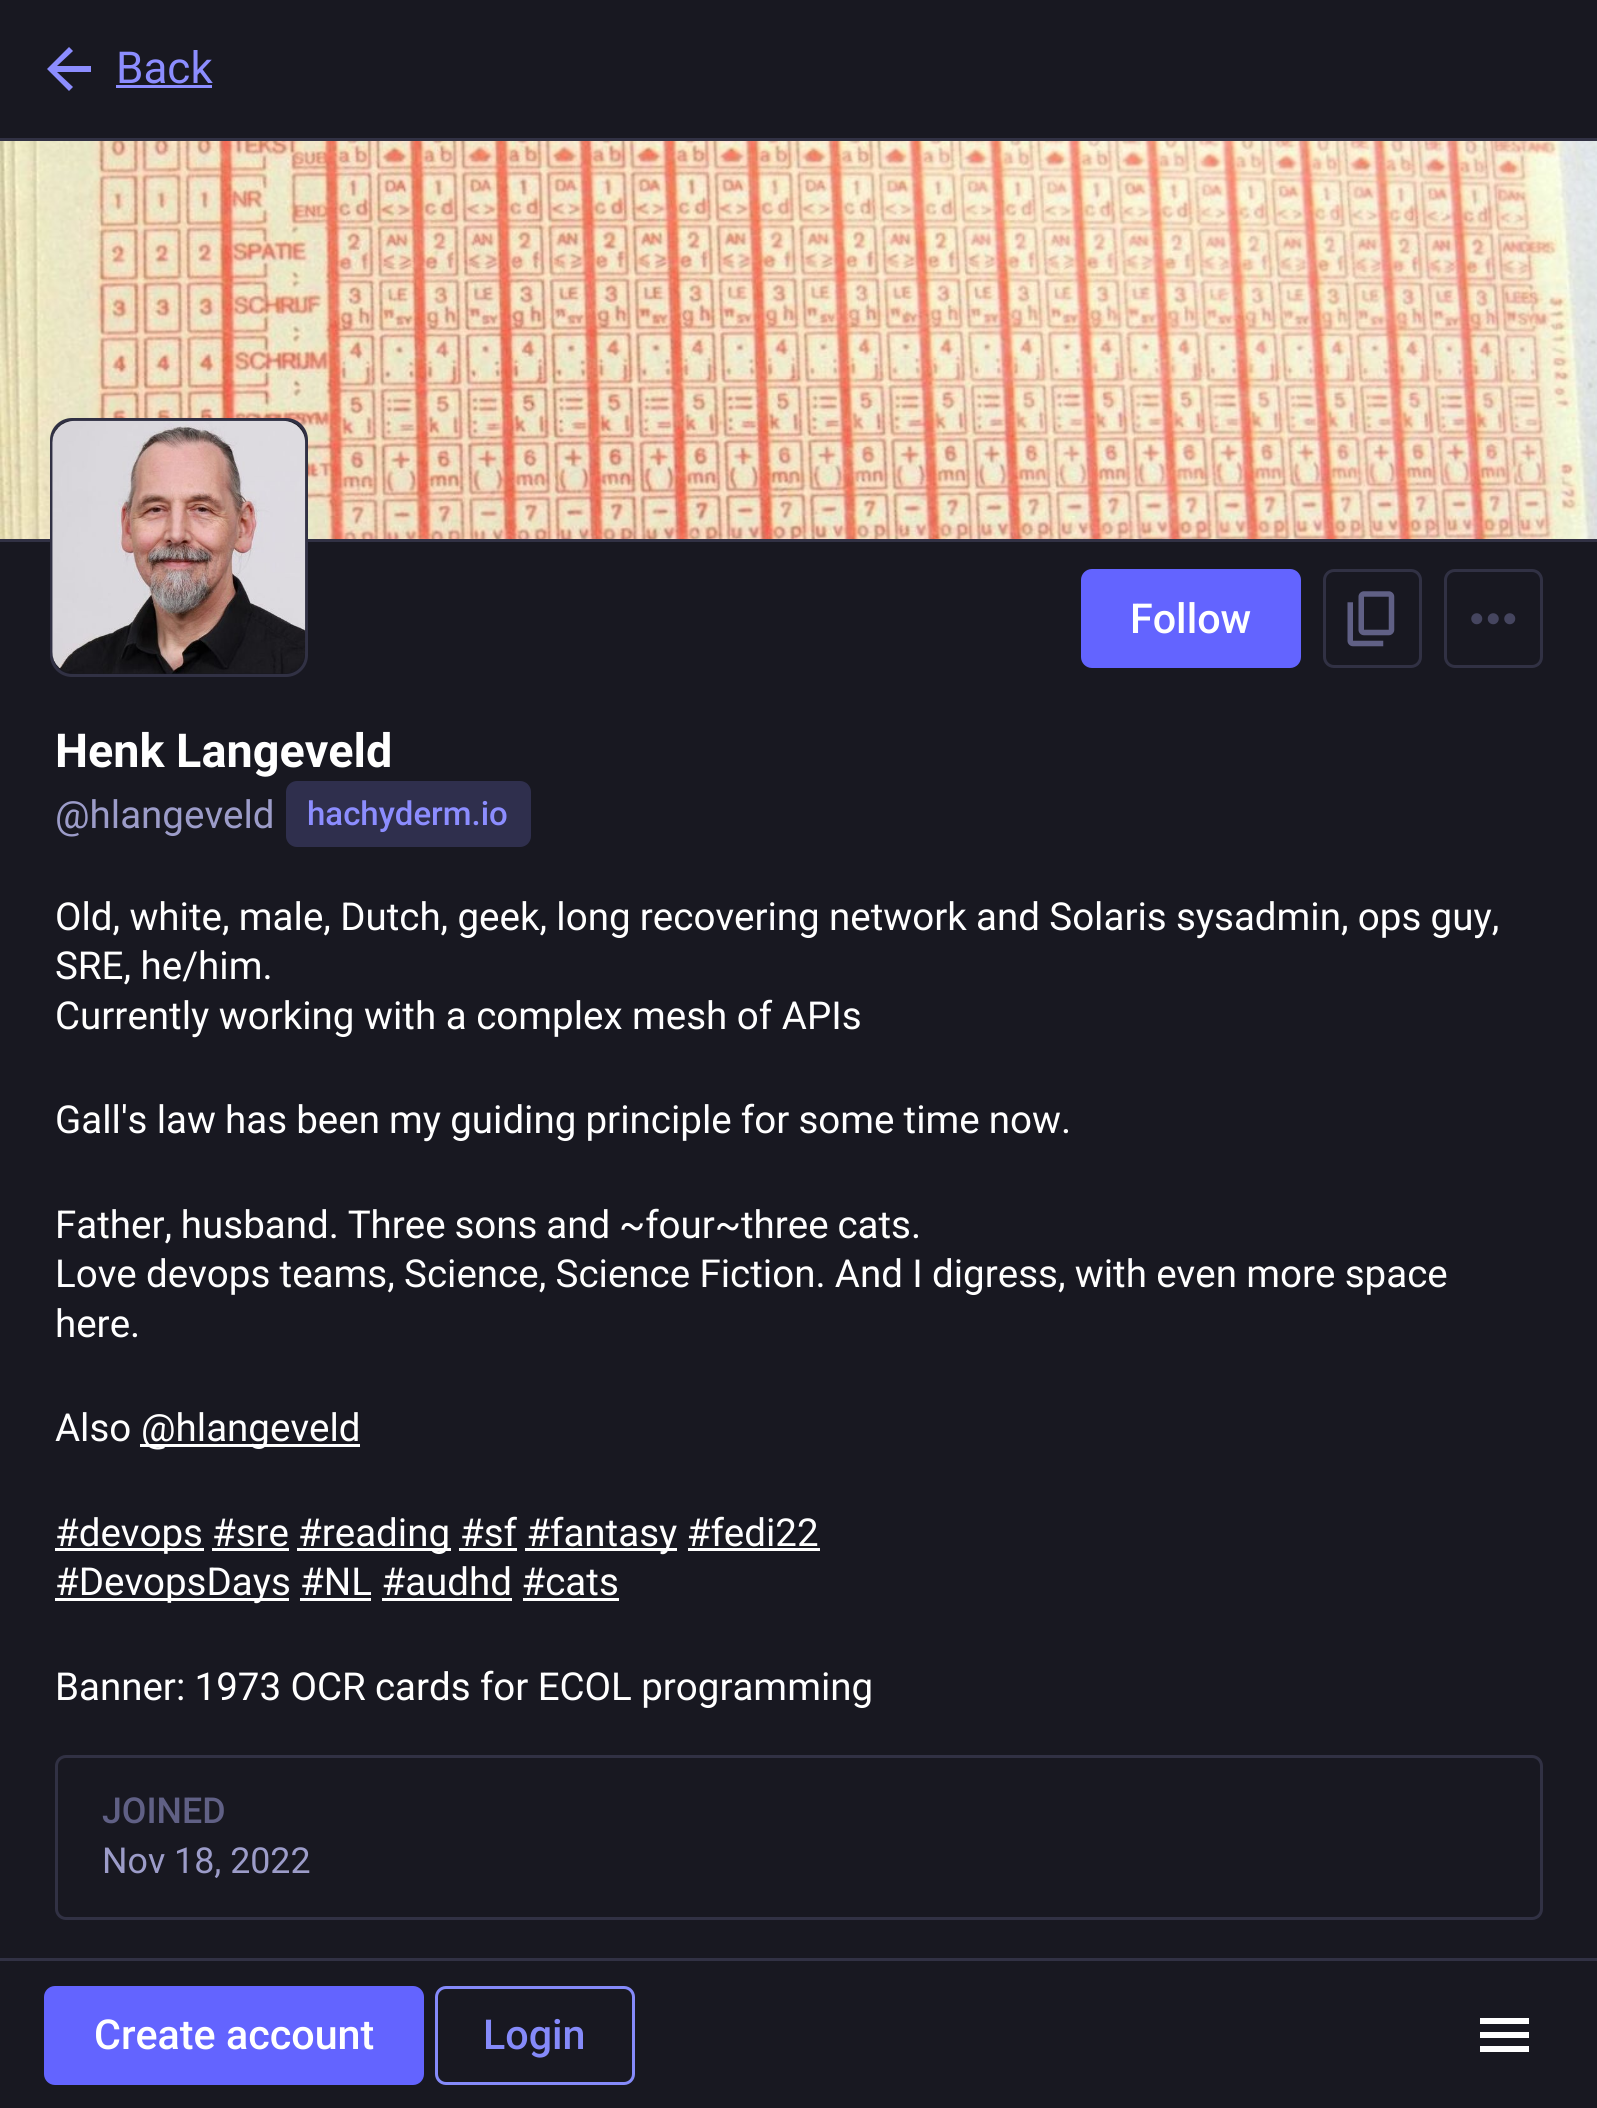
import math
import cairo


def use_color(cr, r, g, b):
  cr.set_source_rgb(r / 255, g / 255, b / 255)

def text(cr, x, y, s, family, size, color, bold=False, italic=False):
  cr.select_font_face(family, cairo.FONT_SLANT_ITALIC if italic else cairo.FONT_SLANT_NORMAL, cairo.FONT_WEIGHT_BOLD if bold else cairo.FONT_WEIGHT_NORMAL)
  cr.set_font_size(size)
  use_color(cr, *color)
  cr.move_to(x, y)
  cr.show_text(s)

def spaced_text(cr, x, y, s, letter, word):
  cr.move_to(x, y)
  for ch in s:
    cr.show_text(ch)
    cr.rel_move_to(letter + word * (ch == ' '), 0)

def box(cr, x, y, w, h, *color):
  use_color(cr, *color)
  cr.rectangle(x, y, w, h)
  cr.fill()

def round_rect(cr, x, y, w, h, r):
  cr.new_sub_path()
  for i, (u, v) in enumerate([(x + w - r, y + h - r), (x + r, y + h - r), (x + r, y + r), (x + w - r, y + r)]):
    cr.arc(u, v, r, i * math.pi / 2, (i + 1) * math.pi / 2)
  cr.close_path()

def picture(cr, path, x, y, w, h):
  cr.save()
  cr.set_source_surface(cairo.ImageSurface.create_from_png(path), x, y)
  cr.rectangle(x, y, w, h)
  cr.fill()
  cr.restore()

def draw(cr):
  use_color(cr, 24, 24, 33)
  cr.paint()
  box(cr, 0, 138, 1597, 3, 49, 49, 68)
  use_color(cr, 140, 141, 255)
  cr.new_path()
  cr.move_to(57, 72)
  cr.line_to(73, 87)
  cr.line_to(69, 91)
  cr.line_to(47, 69)
  cr.line_to(69, 47)
  cr.line_to(73, 51)
  cr.line_to(57, 66)
  cr.line_to(91, 66)
  cr.line_to(91, 72)
  cr.close_path()
  cr.fill()
  box(cr, 116, 85, 96, 3, 140, 141, 255)
  box(cr, 0, 539, 1597, 3, 49, 49, 68)
  picture(cr, "img_01.png", 0, 141, 1597, 398)
  use_color(cr, 24, 24, 33)
  round_rect(cr, 51.5, 419.5, 255, 256, 20.5)
  cr.fill_preserve()
  use_color(cr, 49, 49, 68)
  cr.set_line_width(3)
  cr.stroke()
  picture(cr, "img_02.png", 52, 420, 254, 254)
  use_color(cr, 99, 100, 255)
  round_rect(cr, 1081, 569, 220, 99, 11)
  cr.fill()
  round_rect(cr, 1324.5, 570.5, 96, 96, 9.5)
  use_color(cr, 49, 49, 68)
  cr.stroke()
  picture(cr, "img_03.png", 1347, 591, 48, 56)
  round_rect(cr, 1445.5, 570.5, 96, 96, 9.5)
  cr.stroke()
  picture(cr, "img_04.png", 1471, 613, 45, 12)
  use_color(cr, 47, 47, 77)
  round_rect(cr, 286, 781, 245, 66, 11)
  cr.fill()
  box(cr, 140, 1444, 220, 3, 255, 255, 255)
  box(cr, 55, 1548, 149, 3, 255, 255, 255)
  box(cr, 212, 1548, 77, 3, 255, 255, 255)
  box(cr, 297, 1548, 154, 3, 255, 255, 255)
  box(cr, 459, 1548, 58, 3, 255, 255, 255)
  box(cr, 525, 1548, 152, 3, 255, 255, 255)
  box(cr, 688, 1548, 132, 3, 255, 255, 255)
  box(cr, 55, 1598, 234, 3, 255, 255, 255)
  box(cr, 300, 1598, 71, 3, 255, 255, 255)
  box(cr, 382, 1598, 130, 3, 255, 255, 255)
  box(cr, 523, 1598, 96, 3, 255, 255, 255)
  round_rect(cr, 56.5, 1756.5, 1485, 162, 9.5)
  use_color(cr, 49, 49, 68)
  cr.stroke()
  box(cr, 0, 1958, 1597, 3, 49, 49, 68)
  use_color(cr, 99, 100, 255)
  round_rect(cr, 44, 1986, 380, 99, 11)
  cr.fill()
  round_rect(cr, 436.5, 1987.5, 197, 96, 9.5)
  use_color(cr, 133, 138, 250)
  cr.stroke()
  use_color(cr, 255, 255, 255)
  cr.new_path()
  cr.move_to(1480, 2052)
  cr.line_to(1480, 2046)
  cr.line_to(1529, 2046)
  cr.line_to(1529, 2052)
  cr.close_path()
  cr.move_to(1480, 2038)
  cr.line_to(1480, 2032)
  cr.line_to(1529, 2032)
  cr.line_to(1529, 2038)
  cr.close_path()
  cr.move_to(1480, 2024)
  cr.line_to(1480, 2018)
  cr.line_to(1529, 2018)
  cr.line_to(1529, 2024)
  cr.close_path()
  cr.fill()
  text(cr, 116, 83, "Back", "Roboto", 44, (140, 141, 255))
  text(cr, 1130, 633, "Follow", "Roboto Medium", 41.25, (255, 255, 255))
  text(cr, 55, 767, "Henk Langeveld", "Roboto", 46.75, (255, 255, 255), bold=True)
  text(cr, 55, 828, "@hlangeveld", "Roboto", 38.5, (156, 156, 201))
  text(cr, 307, 825, "hachyderm.io", "Roboto Medium", 33, (140, 141, 255))
  cr.select_font_face("Roboto")
  cr.set_font_size(38.5)
  use_color(cr, 255, 255, 255)
  spaced_text(cr, 55, 930, "Old, white, male, Dutch, geek, long recovering network and Solaris sysadmin, ops guy,", 0, -0.25)
  text(cr, 55, 979, "SRE, he/him.", "Roboto", 38.5, (255, 255, 255))
  text(cr, 55, 1029, "Currently working with a complex mesh of APIs", "Roboto", 38.5, (255, 255, 255))
  spaced_text(cr, 55, 1133, "Gall's law has been my guiding principle for some time now.", 0, -0.4)
  spaced_text(cr, 55, 1238, "Father, husband. Three sons and ~four~three cats.", 0, -0.75)
  spaced_text(cr, 55, 1287, "Love devops teams, Science, Science Fiction. And I digress, with even more space", 0, -0.25)
  text(cr, 55, 1337, "here.", "Roboto", 38.5, (255, 255, 255))
  text(cr, 55, 1441, "Also", "Roboto", 38.5, (255, 255, 255))
  text(cr, 141, 1441, "@hlangeveld", "Roboto", 38.5, (255, 255, 255))
  text(cr, 55, 1546, "#devops", "Roboto", 38.5, (255, 255, 255))
  text(cr, 212, 1546, "#sre", "Roboto", 38.5, (255, 255, 255))
  text(cr, 298, 1546, "#reading", "Roboto", 38.5, (255, 255, 255))
  text(cr, 460, 1546, "#sf #", "Roboto", 38.5, (255, 255, 255))
  text(cr, 550, 1546, "fantasy #fedi22", "Roboto", 38.5, (255, 255, 255))
  text(cr, 55, 1595, "#DevopsDays", "Roboto", 38.5, (255, 255, 255))
  text(cr, 300, 1595, "#NL #audhd #cats", "Roboto", 38.5, (255, 255, 255))
  spaced_text(cr, 55, 1700, "Banner: 1973 OCR cards for ECOL programming", 0, -0.25)
  text(cr, 102, 1823, "JOINED", "Roboto Medium", 35.75, (96, 96, 133))
  text(cr, 102, 1873, "Nov 18, 2022", "Roboto", 35.75, (156, 156, 201))
  text(cr, 94, 2049, "Create account", "Roboto Medium", 41.25, (255, 255, 255))
  text(cr, 483, 2049, "Login", "Roboto Medium", 41.25, (133, 138, 250))


surface = cairo.ImageSurface(cairo.FORMAT_RGB24, 1597, 2108)
cr = cairo.Context(surface)
options = cairo.FontOptions()
options.set_hint_metrics(cairo.HINT_METRICS_OFF)
options.set_hint_style(cairo.HINT_STYLE_NONE)
cr.set_font_options(options)
cr.set_miter_limit(4)
draw(cr)
surface.write_to_png("out.png")
